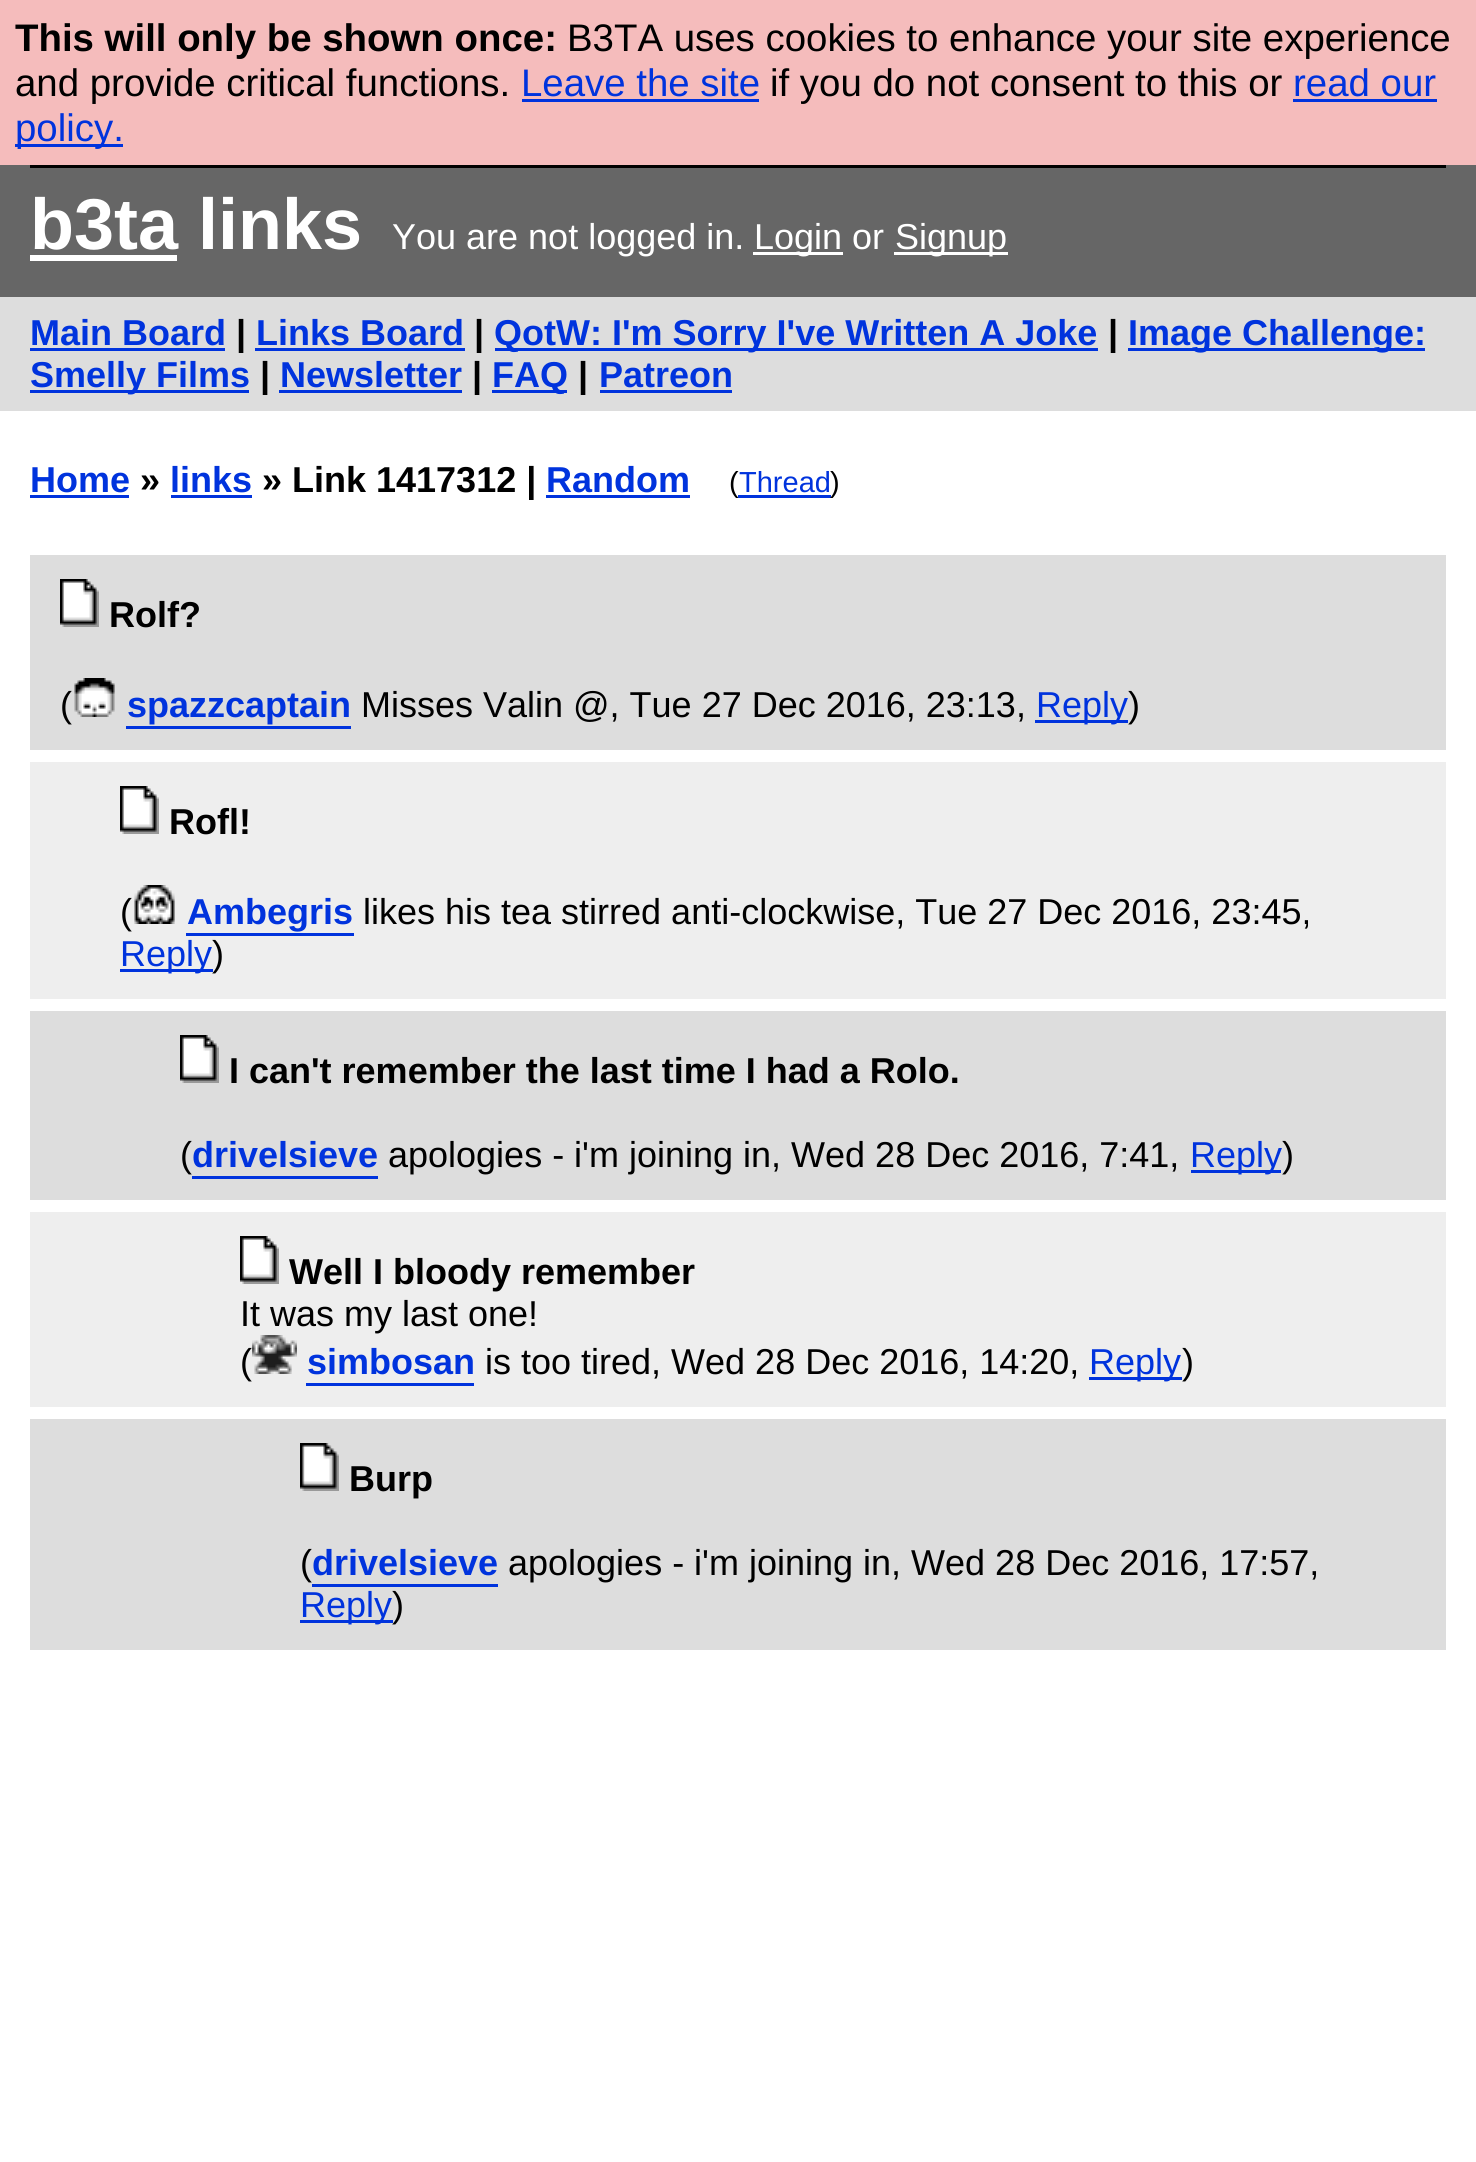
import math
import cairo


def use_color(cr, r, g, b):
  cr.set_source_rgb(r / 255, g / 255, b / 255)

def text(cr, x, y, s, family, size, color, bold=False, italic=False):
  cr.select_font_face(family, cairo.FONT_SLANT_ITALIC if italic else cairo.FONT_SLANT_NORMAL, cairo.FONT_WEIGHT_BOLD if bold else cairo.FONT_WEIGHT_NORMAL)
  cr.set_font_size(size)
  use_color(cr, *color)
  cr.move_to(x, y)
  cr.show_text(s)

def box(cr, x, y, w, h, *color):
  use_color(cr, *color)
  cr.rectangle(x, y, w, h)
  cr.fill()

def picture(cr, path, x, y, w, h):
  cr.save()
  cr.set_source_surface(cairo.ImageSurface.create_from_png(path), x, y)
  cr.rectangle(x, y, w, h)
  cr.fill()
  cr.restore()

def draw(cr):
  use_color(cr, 255, 255, 255)
  cr.paint()
  box(cr, 0, 165, 1476, 132, 102, 102, 102)
  cr.rectangle(31.5, 31.5, 1413, 135)
  use_color(cr, 0, 0, 0)
  cr.set_line_width(3)
  cr.stroke()
  box(cr, 0, 0, 1476, 165, 245, 188, 188)
  box(cr, 522, 99, 237, 3, 0, 51, 221)
  box(cr, 1293, 99, 144, 3, 0, 51, 221)
  box(cr, 15, 144, 108, 3, 0, 51, 221)
  box(cr, 30, 255, 147, 6, 255, 255, 255)
  box(cr, 753, 252, 90, 3, 255, 255, 255)
  box(cr, 894, 252, 114, 3, 255, 255, 255)
  box(cr, 0, 297, 1476, 114, 221, 221, 221)
  box(cr, 30, 348, 195, 3, 0, 51, 221)
  box(cr, 255, 348, 210, 3, 0, 51, 221)
  box(cr, 495, 348, 603, 3, 0, 51, 221)
  box(cr, 1128, 348, 297, 3, 0, 51, 221)
  box(cr, 30, 390, 219, 3, 0, 51, 221)
  box(cr, 279, 390, 183, 3, 0, 51, 221)
  box(cr, 492, 390, 75, 3, 0, 51, 221)
  box(cr, 600, 390, 132, 3, 0, 51, 221)
  box(cr, 30, 495, 99, 3, 0, 51, 221)
  box(cr, 171, 495, 81, 3, 0, 51, 221)
  box(cr, 546, 495, 144, 3, 0, 51, 221)
  box(cr, 30, 555, 1416, 195, 221, 221, 221)
  picture(cr, "img_01.png", 60, 579, 39, 48)
  picture(cr, "img_02.png", 74, 678, 41, 39)
  box(cr, 126, 726, 225, 3, 0, 51, 221)
  box(cr, 1035, 720, 93, 3, 0, 51, 221)
  box(cr, 30, 762, 1416, 237, 238, 238, 238)
  picture(cr, "img_03.png", 120, 786, 39, 48)
  picture(cr, "img_04.png", 134, 885, 41, 39)
  box(cr, 186, 933, 168, 3, 0, 51, 221)
  box(cr, 120, 969, 93, 3, 0, 51, 221)
  box(cr, 30, 1011, 1416, 189, 221, 221, 221)
  picture(cr, "img_01.png", 180, 1035, 39, 48)
  box(cr, 192, 1176, 186, 3, 0, 51, 221)
  box(cr, 1191, 1170, 90, 3, 0, 51, 221)
  box(cr, 30, 1212, 1416, 195, 238, 238, 238)
  picture(cr, "img_03.png", 240, 1236, 39, 48)
  picture(cr, "img_05.png", 252, 1335, 45, 39)
  box(cr, 306, 1383, 168, 3, 0, 51, 221)
  box(cr, 1089, 1377, 93, 3, 0, 51, 221)
  box(cr, 30, 1419, 1416, 231, 221, 221, 221)
  picture(cr, "img_06.png", 300, 1443, 39, 48)
  box(cr, 312, 1584, 186, 3, 0, 51, 221)
  box(cr, 300, 1620, 93, 3, 0, 51, 221)
  text(cr, 15, 51, "This will only be shown once:", "Liberation Sans", 38.4, (0, 0, 0), bold=True)
  text(cr, 567, 51, "B3TA uses cookies to enhance your site experience", "Liberation Sans", 38.4, (0, 0, 0))
  text(cr, 15, 96, "and provide critical functions.", "Liberation Sans", 38.4, (0, 0, 0))
  text(cr, 521, 96, "Leave the site", "Liberation Sans", 38.4, (0, 51, 221))
  text(cr, 770, 96, "if you do not consent to this or", "Liberation Sans", 38.4, (0, 0, 0))
  text(cr, 1293, 96, "read our", "Liberation Sans", 38.4, (0, 51, 221))
  text(cr, 15, 141, "policy.", "Liberation Sans", 38.4, (0, 51, 221))
  text(cr, 30, 249, "b3ta links", "Liberation Sans", 72, (255, 255, 255), bold=True)
  text(cr, 392, 249, "You are not logged in.", "Liberation Sans", 36, (255, 255, 255))
  text(cr, 754, 249, "Login or", "Liberation Sans", 36, (255, 255, 255))
  text(cr, 895, 249, "Signup", "Liberation Sans", 36, (255, 255, 255))
  text(cr, 30, 345, "Main Board", "Liberation Sans", 36, (0, 51, 221), bold=True)
  text(cr, 236, 345, "|", "Liberation Sans", 36, (0, 0, 0), bold=True)
  text(cr, 256, 345, "Links Board", "Liberation Sans", 36, (0, 51, 221), bold=True)
  text(cr, 474, 345, "|", "Liberation Sans", 36, (0, 0, 0), bold=True)
  text(cr, 494, 345, "QotW: I'm Sorry I've Written A Joke", "Liberation Sans", 36, (0, 51, 221), bold=True)
  text(cr, 1108, 345, "|", "Liberation Sans", 36, (0, 0, 0), bold=True)
  text(cr, 1128, 345, "Image Challenge:", "Liberation Sans", 36, (0, 51, 221), bold=True)
  text(cr, 30, 387, "Smelly Films", "Liberation Sans", 36, (0, 51, 221), bold=True)
  text(cr, 260, 387, "|", "Liberation Sans", 36, (0, 0, 0), bold=True)
  text(cr, 280, 387, "Newsletter", "Liberation Sans", 36, (0, 51, 221), bold=True)
  text(cr, 472, 387, "|", "Liberation Sans", 36, (0, 0, 0), bold=True)
  text(cr, 492, 387, "FAQ", "Liberation Sans", 36, (0, 51, 221), bold=True)
  text(cr, 578, 387, "|", "Liberation Sans", 36, (0, 0, 0), bold=True)
  text(cr, 599, 387, "Patreon", "Liberation Sans", 36, (0, 51, 221), bold=True)
  text(cr, 30, 492, "Home", "Liberation Sans", 36, (0, 51, 221), bold=True)
  text(cr, 140, 492, "»", "Liberation Sans", 36, (0, 0, 0), bold=True)
  text(cr, 170, 492, "links", "Liberation Sans", 36, (0, 51, 221), bold=True)
  text(cr, 262, 492, "» Link 1417312 |", "Liberation Sans", 36, (0, 0, 0), bold=True)
  text(cr, 546, 492, "Random", "Liberation Sans", 36, (0, 51, 221), bold=True)
  text(cr, 729, 492, "(", "Liberation Sans", 29, (0, 0, 0))
  box(cr, 738, 495, 93, 3, 0, 51, 221)
  text(cr, 739, 492, "Thread", "Liberation Sans", 29, (0, 51, 221))
  text(cr, 830, 492, ")", "Liberation Sans", 29, (0, 0, 0))
  text(cr, 109, 627, "Rolf?", "Liberation Sans", 36, (0, 0, 0), bold=True)
  text(cr, 60, 717, "(", "Liberation Sans", 36, (0, 0, 0))
  text(cr, 127, 717, "spazzcaptain", "Liberation Sans", 36, (0, 51, 221), bold=True)
  text(cr, 361, 717, "Misses Valin @, Tue 27 Dec 2016, 23:13,", "Liberation Sans", 36, (0, 0, 0))
  text(cr, 1036, 717, "Reply", "Liberation Sans", 36, (0, 51, 221))
  text(cr, 1128, 717, ")", "Liberation Sans", 36, (0, 0, 0))
  text(cr, 169, 834, "Rofl!", "Liberation Sans", 36, (0, 0, 0), bold=True)
  text(cr, 120, 924, "(", "Liberation Sans", 36, (0, 0, 0))
  text(cr, 187, 924, "Ambegris", "Liberation Sans", 36, (0, 51, 221), bold=True)
  text(cr, 363, 924, "likes his tea stirred anti-clockwise, Tue 27 Dec 2016, 23:45,", "Liberation Sans", 36, (0, 0, 0))
  text(cr, 120, 966, "Reply", "Liberation Sans", 36, (0, 51, 221))
  text(cr, 212, 966, ")", "Liberation Sans", 36, (0, 0, 0))
  text(cr, 229, 1083, "I can't remember the last time I had a Rolo.", "Liberation Sans", 36, (0, 0, 0), bold=True)
  text(cr, 180, 1167, "(", "Liberation Sans", 36, (0, 0, 0))
  text(cr, 192, 1167, "drivelsieve", "Liberation Sans", 36, (0, 51, 221), bold=True)
  text(cr, 388, 1167, "apologies - i'm joining in, Wed 28 Dec 2016, 7:41,", "Liberation Sans", 36, (0, 0, 0))
  text(cr, 1190, 1167, "Reply", "Liberation Sans", 36, (0, 51, 221))
  text(cr, 1282, 1167, ")", "Liberation Sans", 36, (0, 0, 0))
  text(cr, 289, 1284, "Well I bloody remember", "Liberation Sans", 36, (0, 0, 0), bold=True)
  text(cr, 240, 1326, "It was my last one!", "Liberation Sans", 36, (0, 0, 0))
  text(cr, 240, 1374, "(", "Liberation Sans", 36, (0, 0, 0))
  text(cr, 307, 1374, "simbosan", "Liberation Sans", 36, (0, 51, 221), bold=True)
  text(cr, 485, 1374, "is too tired, Wed 28 Dec 2016, 14:20,", "Liberation Sans", 36, (0, 0, 0))
  text(cr, 1089, 1374, "Reply", "Liberation Sans", 36, (0, 51, 221))
  text(cr, 1182, 1374, ")", "Liberation Sans", 36, (0, 0, 0))
  text(cr, 349, 1491, "Burp", "Liberation Sans", 36, (0, 0, 0), bold=True)
  text(cr, 300, 1575, "(", "Liberation Sans", 36, (0, 0, 0))
  text(cr, 312, 1575, "drivelsieve", "Liberation Sans", 36, (0, 51, 221), bold=True)
  text(cr, 508, 1575, "apologies - i'm joining in, Wed 28 Dec 2016, 17:57,", "Liberation Sans", 36, (0, 0, 0))
  text(cr, 300, 1617, "Reply", "Liberation Sans", 36, (0, 51, 221))
  text(cr, 392, 1617, ")", "Liberation Sans", 36, (0, 0, 0))


surface = cairo.ImageSurface(cairo.FORMAT_RGB24, 1476, 2162)
cr = cairo.Context(surface)
options = cairo.FontOptions()
options.set_hint_metrics(cairo.HINT_METRICS_OFF)
options.set_hint_style(cairo.HINT_STYLE_NONE)
cr.set_font_options(options)
cr.set_miter_limit(4)
draw(cr)
surface.write_to_png("out.png")
